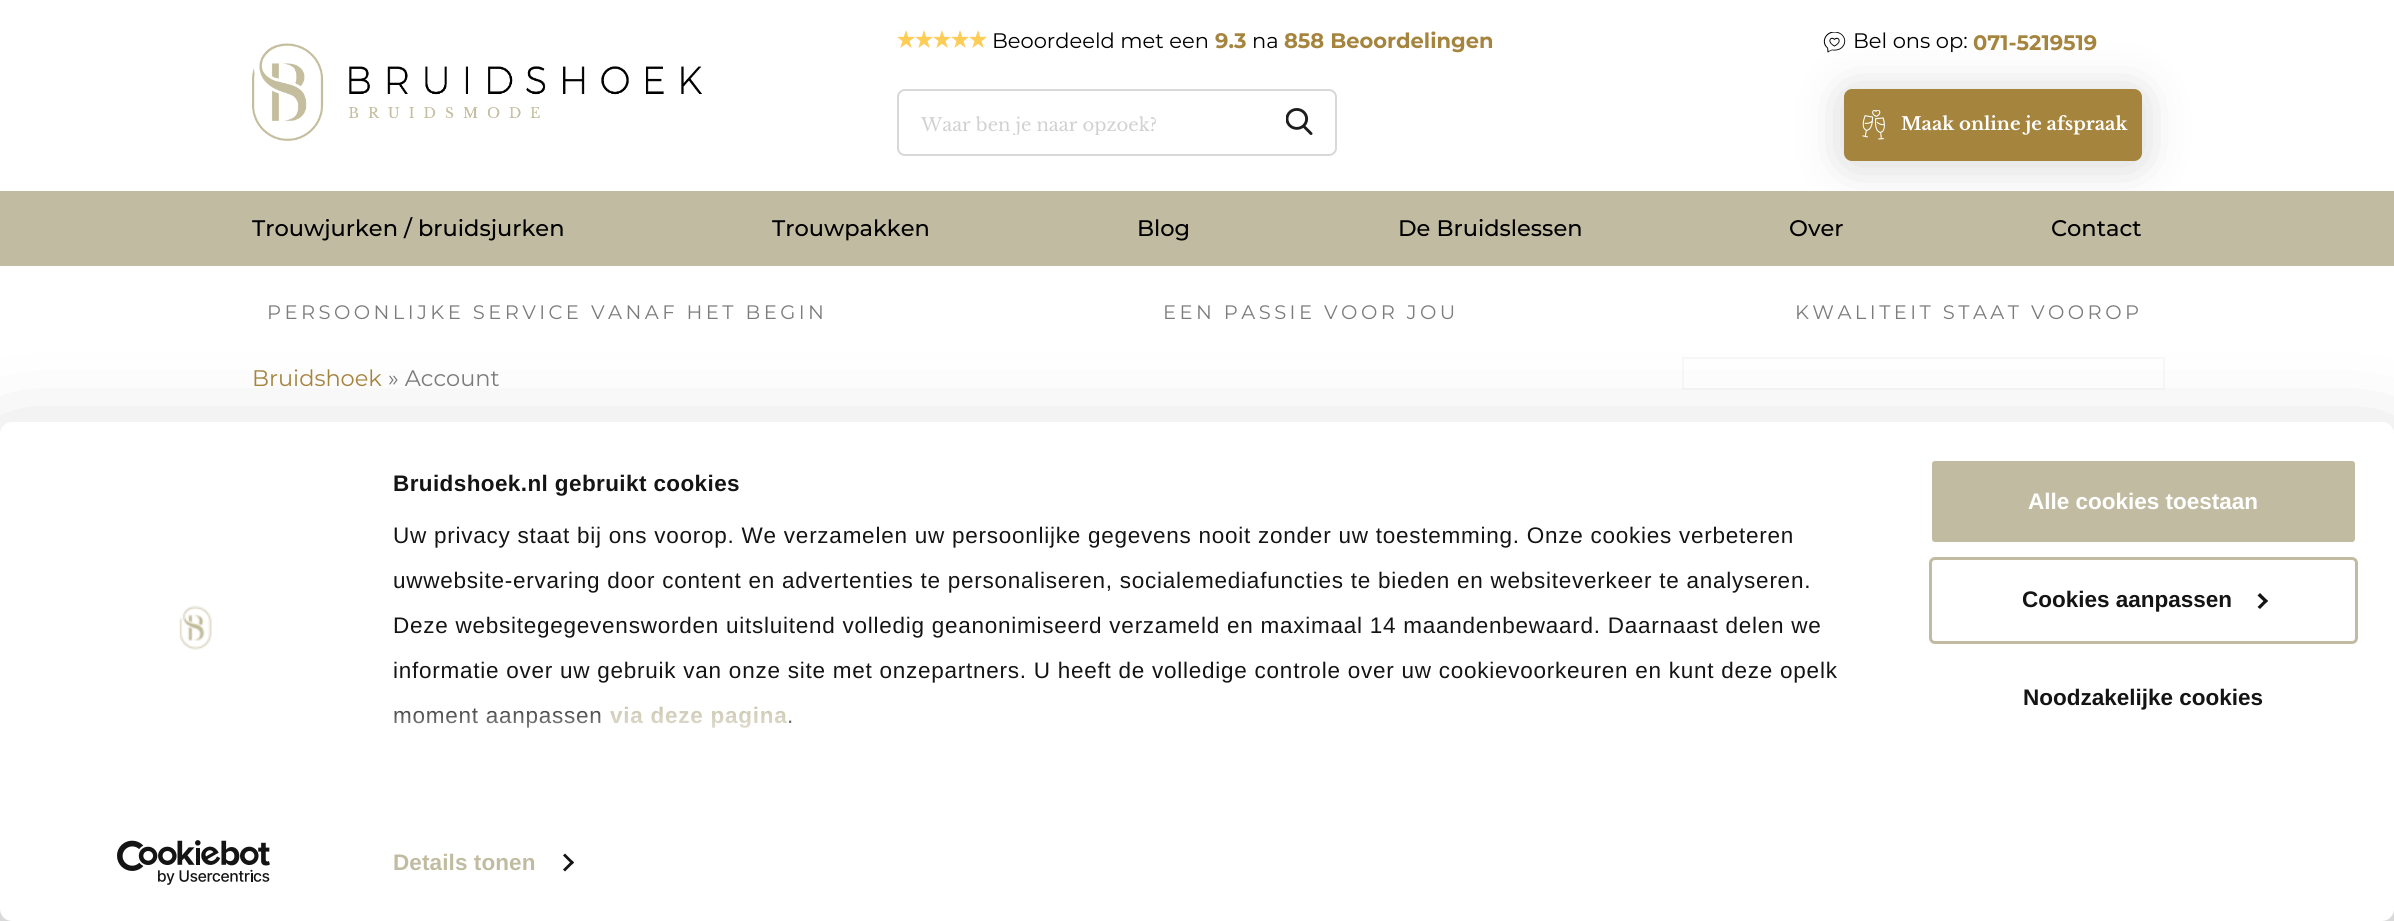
import math
import cairo


def use_color(cr, r, g, b):
  cr.set_source_rgb(r / 255, g / 255, b / 255)

def text(cr, x, y, s, family, size, color, bold=False, italic=False):
  cr.select_font_face(family, cairo.FONT_SLANT_ITALIC if italic else cairo.FONT_SLANT_NORMAL, cairo.FONT_WEIGHT_BOLD if bold else cairo.FONT_WEIGHT_NORMAL)
  cr.set_font_size(size)
  use_color(cr, *color)
  cr.move_to(x, y)
  cr.show_text(s)

def spaced_text(cr, x, y, s, letter, word):
  cr.move_to(x, y)
  for ch in s:
    cr.show_text(ch)
    cr.rel_move_to(letter + word * (ch == ' '), 0)

def box(cr, x, y, w, h, *color):
  use_color(cr, *color)
  cr.rectangle(x, y, w, h)
  cr.fill()

def round_rect(cr, x, y, w, h, r):
  cr.new_sub_path()
  for i, (u, v) in enumerate([(x + w - r, y + h - r), (x + r, y + h - r), (x + r, y + r), (x + w - r, y + r)]):
    cr.arc(u, v, r, i * math.pi / 2, (i + 1) * math.pi / 2)
  cr.close_path()

def shadow(cr, x, y, w, h, r, blur, alpha):
  cr.push_group_with_content(cairo.CONTENT_ALPHA)
  cr.set_operator(cairo.OPERATOR_SOURCE)
  for i in range(15, -16, -2):
    e = blur * i / 6
    if min(w, h) + 2 * e > 0:
      cr.set_source_rgba(0, 0, 0, alpha * math.erfc((i - 1) / 8.5) / 2)
      round_rect(cr, x - e, y - e, w + 2 * e, h + 2 * e, max(0, min(r + e + blur * .6, min(w, h) / 2 + e)))
      cr.fill()
  cr.mask(cr.pop_group())

def picture(cr, path, x, y, w, h):
  cr.save()
  cr.set_source_surface(cairo.ImageSurface.create_from_png(path), x, y)
  cr.rectangle(x, y, w, h)
  cr.fill()
  cr.restore()

def draw(cr):
  use_color(cr, 255, 255, 255)
  cr.paint()
  picture(cr, "img_01.png", 897, 30, 18, 18)
  picture(cr, "img_01.png", 915, 30, 18, 18)
  picture(cr, "img_01.png", 933, 30, 18, 18)
  picture(cr, "img_01.png", 951, 30, 18, 18)
  picture(cr, "img_01.png", 969, 30, 18, 18)
  picture(cr, "img_02.png", 1823, 32, 23, 21)
  picture(cr, "img_03.png", 252, 43, 450, 98)
  round_rect(cr, 898, 90, 438, 65, 7)
  use_color(cr, 216, 216, 216)
  cr.stroke()
  picture(cr, "img_04.png", 1286, 108, 27, 27)
  use_color(cr, 0, 0, 0)
  shadow(cr, 1844, 92, 298, 72, 8, 22.5, 0.17)
  use_color(cr, 165, 132, 62)
  round_rect(cr, 1844, 89, 298, 72, 8)
  cr.fill()
  picture(cr, "img_05.png", 1862, 110, 23, 30)
  box(cr, 0, 191, 2394, 75, 193, 188, 161)
  cr.rectangle(1683, 358, 481, 31)
  use_color(cr, 248, 248, 248)
  cr.stroke()
  use_color(cr, 0, 0, 0)
  shadow(cr, 0, 467, 2394, 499, 12, 52.5, 0.3)
  use_color(cr, 255, 255, 255)
  round_rect(cr, 0, 422, 2394, 499, 12)
  cr.fill()
  picture(cr, "img_06.png", 179, 605, 33, 45)
  picture(cr, "img_07.png", 117, 840, 153, 45)
  use_color(cr, 20, 20, 20)
  cr.new_path()
  cr.move_to(565, 853.5)
  cr.line_to(574, 862.5)
  cr.line_to(572, 864.5)
  cr.line_to(563, 855.5)
  cr.close_path()
  cr.fill()
  cr.new_path()
  cr.move_to(572, 860.5)
  cr.line_to(574, 862.5)
  cr.line_to(565, 871.5)
  cr.line_to(563, 869.5)
  cr.close_path()
  cr.fill()
  use_color(cr, 193, 188, 161)
  round_rect(cr, 1930.5, 459.5, 426, 84, 4.5)
  cr.fill_preserve()
  use_color(cr, 255, 255, 255)
  cr.set_line_width(3)
  cr.stroke()
  round_rect(cr, 1930.5, 558.5, 426, 84, 4.5)
  use_color(cr, 193, 188, 161)
  cr.stroke()
  use_color(cr, 20, 20, 20)
  cr.new_path()
  cr.move_to(2260, 593)
  cr.line_to(2268, 601)
  cr.line_to(2265.5, 603)
  cr.line_to(2257.5, 595.5)
  cr.close_path()
  cr.fill()
  cr.new_path()
  cr.move_to(2265.5, 599)
  cr.line_to(2268, 601)
  cr.line_to(2260, 609)
  cr.line_to(2257.5, 607)
  cr.close_path()
  cr.fill()
  text(cr, 992, 48, "Beoordeeld met een", "Montserrat", 21, (0, 0, 0))
  text(cr, 1215, 48, "9.3", "Montserrat", 21, (165, 132, 62), bold=True)
  text(cr, 1252, 48, "na", "Montserrat", 21, (0, 0, 0))
  text(cr, 1284, 48, "858 Beoordelingen", "Montserrat", 21, (165, 132, 62), bold=True)
  text(cr, 1853, 48, "Bel ons op:", "Montserrat", 21, (0, 0, 0))
  text(cr, 1973, 50, "071-5219519", "Montserrat", 21, (165, 132, 62), bold=True)
  cr.save()
  cr.rectangle(921, 113, 390, 22)
  cr.clip()
  text(cr, 921, 131, "Waar ben je naar opzoek?", "Libre Baskerville", 18, (209, 209, 209))
  cr.restore()
  text(cr, 1901, 130, "Maak online je afspraak", "Libre Baskerville", 18, (255, 255, 255), bold=True)
  text(cr, 252, 236, "Trouwjurken / bruidsjurken", "Montserrat Medium", 22.5, (0, 0, 0))
  text(cr, 772, 236, "Trouwpakken", "Montserrat Medium", 22.5, (0, 0, 0))
  text(cr, 1137, 236, "Blog", "Montserrat Medium", 22.5, (0, 0, 0))
  text(cr, 1398, 236, "De Bruidslessen", "Montserrat Medium", 22.5, (0, 0, 0))
  text(cr, 1789, 236, "Over", "Montserrat Medium", 22.5, (0, 0, 0))
  text(cr, 2051, 236, "Contact", "Montserrat Medium", 22.5, (0, 0, 0))
  cr.select_font_face("Montserrat")
  cr.set_font_size(19.5)
  use_color(cr, 124, 124, 124)
  spaced_text(cr, 267, 319, "PERSOONLIJKE SERVICE VANAF HET BEGIN", 3.45, 0)
  spaced_text(cr, 1163, 319, "EEN PASSIE VOOR JOU", 3.45, 0)
  spaced_text(cr, 1795, 319, "KWALITEIT STAAT VOOROP", 3.45, 0)
  text(cr, 252, 386, "Bruidshoek", "Montserrat", 22.5, (165, 132, 62))
  text(cr, 388, 386, "» Account", "Montserrat", 22.5, (124, 124, 124))
  cr.select_font_face("Liberation Sans", cairo.FONT_SLANT_NORMAL, cairo.FONT_WEIGHT_BOLD)
  use_color(cr, 20, 20, 20)
  spaced_text(cr, 393, 491, "Bruidshoek.nl gebruikt cookies", 0.4, 0)
  cr.select_font_face("Liberation Sans")
  spaced_text(cr, 393, 543, "Uw privacy staat bij ons voorop. We verzamelen uw persoonlijke gegevens nooit zonder uw toestemming. Onze cookies verbeteren", 0.75, 0)
  spaced_text(cr, 393, 588, "uwwebsite-ervaring door content en advertenties te personaliseren, socialemediafuncties te bieden en websiteverkeer te analyseren.", 0.75, 0)
  spaced_text(cr, 393, 633, "Deze websitegegevensworden uitsluitend volledig geanonimiseerd verzameld en maximaal 14 maandenbewaard. Daarnaast delen we", 0.75, 0)
  spaced_text(cr, 393, 678, "informatie over uw gebruik van onze site met onzepartners. U heeft de volledige controle over uw cookievoorkeuren en kunt deze opelk", 0.75, 0)
  spaced_text(cr, 393, 723, "moment aanpassen", 0.75, 0)
  cr.select_font_face("Liberation Sans", cairo.FONT_SLANT_NORMAL, cairo.FONT_WEIGHT_BOLD)
  use_color(cr, 193, 188, 161)
  spaced_text(cr, 610, 723, "via deze pagina", 0.75, 0)
  cr.select_font_face("Liberation Sans")
  use_color(cr, 20, 20, 20)
  spaced_text(cr, 787, 723, ".", 0.75, 0)
  gradient = cairo.LinearGradient(1125, 807, 1125, 695)
  gradient.add_color_stop_rgba(0, 1, 1, 1, 1)
  gradient.add_color_stop_rgba(0.5, 1, 1, 1, 0.8)
  gradient.add_color_stop_rgba(1, 1, 1, 1, 0)
  cr.set_source(gradient)
  cr.rectangle(394, 706, 398, 22)
  cr.fill()
  cr.select_font_face("Liberation Sans", cairo.FONT_SLANT_NORMAL, cairo.FONT_WEIGHT_BOLD)
  use_color(cr, 193, 188, 161)
  spaced_text(cr, 393, 870, "Details tonen", 0.1, 0)
  text(cr, 2028, 509, "Alle cookies toestaan", "Liberation Sans", 22.5, (255, 255, 255), bold=True)
  text(cr, 2022, 607, "Cookies aanpassen", "Liberation Sans", 22.5, (20, 20, 20), bold=True)
  text(cr, 2023, 705, "Noodzakelijke cookies", "Liberation Sans", 22.5, (20, 20, 20), bold=True)


surface = cairo.ImageSurface(cairo.FORMAT_RGB24, 2394, 921)
cr = cairo.Context(surface)
options = cairo.FontOptions()
options.set_hint_metrics(cairo.HINT_METRICS_OFF)
options.set_hint_style(cairo.HINT_STYLE_NONE)
cr.set_font_options(options)
cr.set_miter_limit(4)
draw(cr)
surface.write_to_png("out.png")
